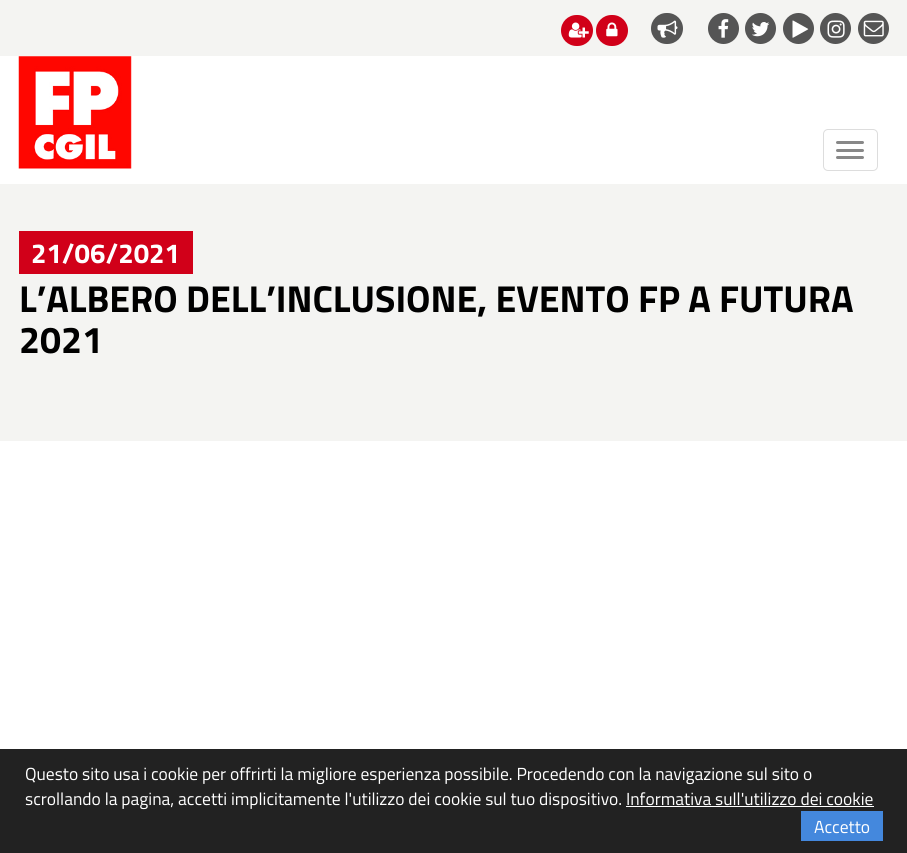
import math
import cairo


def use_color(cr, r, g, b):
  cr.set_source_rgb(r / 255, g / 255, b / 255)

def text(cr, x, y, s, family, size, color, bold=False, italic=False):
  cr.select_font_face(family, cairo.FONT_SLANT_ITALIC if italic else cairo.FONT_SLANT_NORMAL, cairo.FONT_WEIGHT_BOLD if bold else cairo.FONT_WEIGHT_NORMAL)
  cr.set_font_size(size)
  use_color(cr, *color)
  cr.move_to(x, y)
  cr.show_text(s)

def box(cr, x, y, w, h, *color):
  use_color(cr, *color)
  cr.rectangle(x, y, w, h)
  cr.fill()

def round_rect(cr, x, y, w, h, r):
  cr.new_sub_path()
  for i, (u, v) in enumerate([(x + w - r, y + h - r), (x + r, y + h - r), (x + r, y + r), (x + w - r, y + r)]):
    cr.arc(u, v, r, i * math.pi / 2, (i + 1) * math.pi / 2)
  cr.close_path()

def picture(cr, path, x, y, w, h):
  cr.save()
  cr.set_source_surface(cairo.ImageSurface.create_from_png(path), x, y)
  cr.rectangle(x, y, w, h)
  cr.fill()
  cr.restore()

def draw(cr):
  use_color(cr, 255, 255, 255)
  cr.paint()
  box(cr, 0, 0, 907, 56, 244, 244, 242)
  use_color(cr, 209, 0, 25)
  round_rect(cr, 561, 15, 32, 31, 15.5)
  cr.fill()
  picture(cr, "img_01.png", 568, 22, 21, 16)
  round_rect(cr, 596, 15, 32, 31, 15.5)
  cr.fill()
  picture(cr, "img_02.png", 606, 22, 12, 15)
  use_color(cr, 85, 85, 85)
  round_rect(cr, 651, 13, 32, 31, 15.5)
  cr.fill()
  picture(cr, "img_03.png", 657, 20, 21, 18)
  cr.arc(723.5, 28.5, 15.5, 0, 2 * math.pi)
  cr.fill()
  picture(cr, "img_04.png", 718, 19, 11, 19)
  cr.arc(760.5, 28.5, 15.5, 0, 2 * math.pi)
  cr.fill()
  picture(cr, "img_05.png", 752, 22, 18, 15)
  cr.arc(798.5, 28.5, 15.5, 0, 2 * math.pi)
  cr.fill()
  picture(cr, "img_06.png", 792, 20, 17, 18)
  cr.arc(835.5, 28.5, 15.5, 0, 2 * math.pi)
  cr.fill()
  picture(cr, "img_07.png", 827, 20, 18, 18)
  cr.arc(873.5, 28.5, 15.5, 0, 2 * math.pi)
  cr.fill()
  picture(cr, "img_08.png", 863, 20, 21, 17)
  picture(cr, "img_09.png", 18, 56, 114, 113)
  round_rect(cr, 823.5, 129.5, 54, 41, 4.5)
  use_color(cr, 221, 221, 221)
  cr.set_line_width(1)
  cr.stroke()
  use_color(cr, 136, 136, 136)
  round_rect(cr, 836, 141, 28, 3, 1.5)
  cr.fill()
  round_rect(cr, 836, 149, 28, 3, 1.5)
  cr.fill()
  round_rect(cr, 836, 156, 28, 3, 1.5)
  cr.fill()
  box(cr, 0, 184, 907, 257, 244, 244, 242)
  box(cr, 19, 231, 174, 43, 209, 0, 25)
  box(cr, 0, 749, 907, 104, 34, 34, 34)
  box(cr, 626, 806, 248, 1, 255, 255, 255)
  box(cr, 801, 811, 82, 30, 68, 136, 221)
  text(cr, 31, 263, "21/06/2021", "Titillium Web", 27.5, (255, 255, 255), bold=True)
  text(cr, 19, 312, "L’ALBERO DELL’INCLUSIONE, EVENTO FP A FUTURA", "Titillium Web", 37.5, (0, 0, 0), bold=True)
  text(cr, 19, 353, "2021", "Titillium Web", 37.5, (0, 0, 0), bold=True)
  text(cr, 25, 780, "Questo sito usa i cookie per offrirti la migliore esperienza possibile. Procedendo con la navigazione sul sito o", "Titillium Web", 17.5, (255, 255, 255))
  text(cr, 25, 805, "scrollando la pagina, accetti implicitamente l'utilizzo dei cookie sul tuo dispositivo. Informativa sull'utilizzo dei cookie", "Titillium Web", 17.5, (255, 255, 255))
  text(cr, 814, 833, "Accetto", "Titillium Web", 17.5, (255, 255, 255))


surface = cairo.ImageSurface(cairo.FORMAT_RGB24, 907, 853)
cr = cairo.Context(surface)
options = cairo.FontOptions()
options.set_hint_metrics(cairo.HINT_METRICS_OFF)
options.set_hint_style(cairo.HINT_STYLE_NONE)
cr.set_font_options(options)
cr.set_miter_limit(4)
draw(cr)
surface.write_to_png("out.png")
